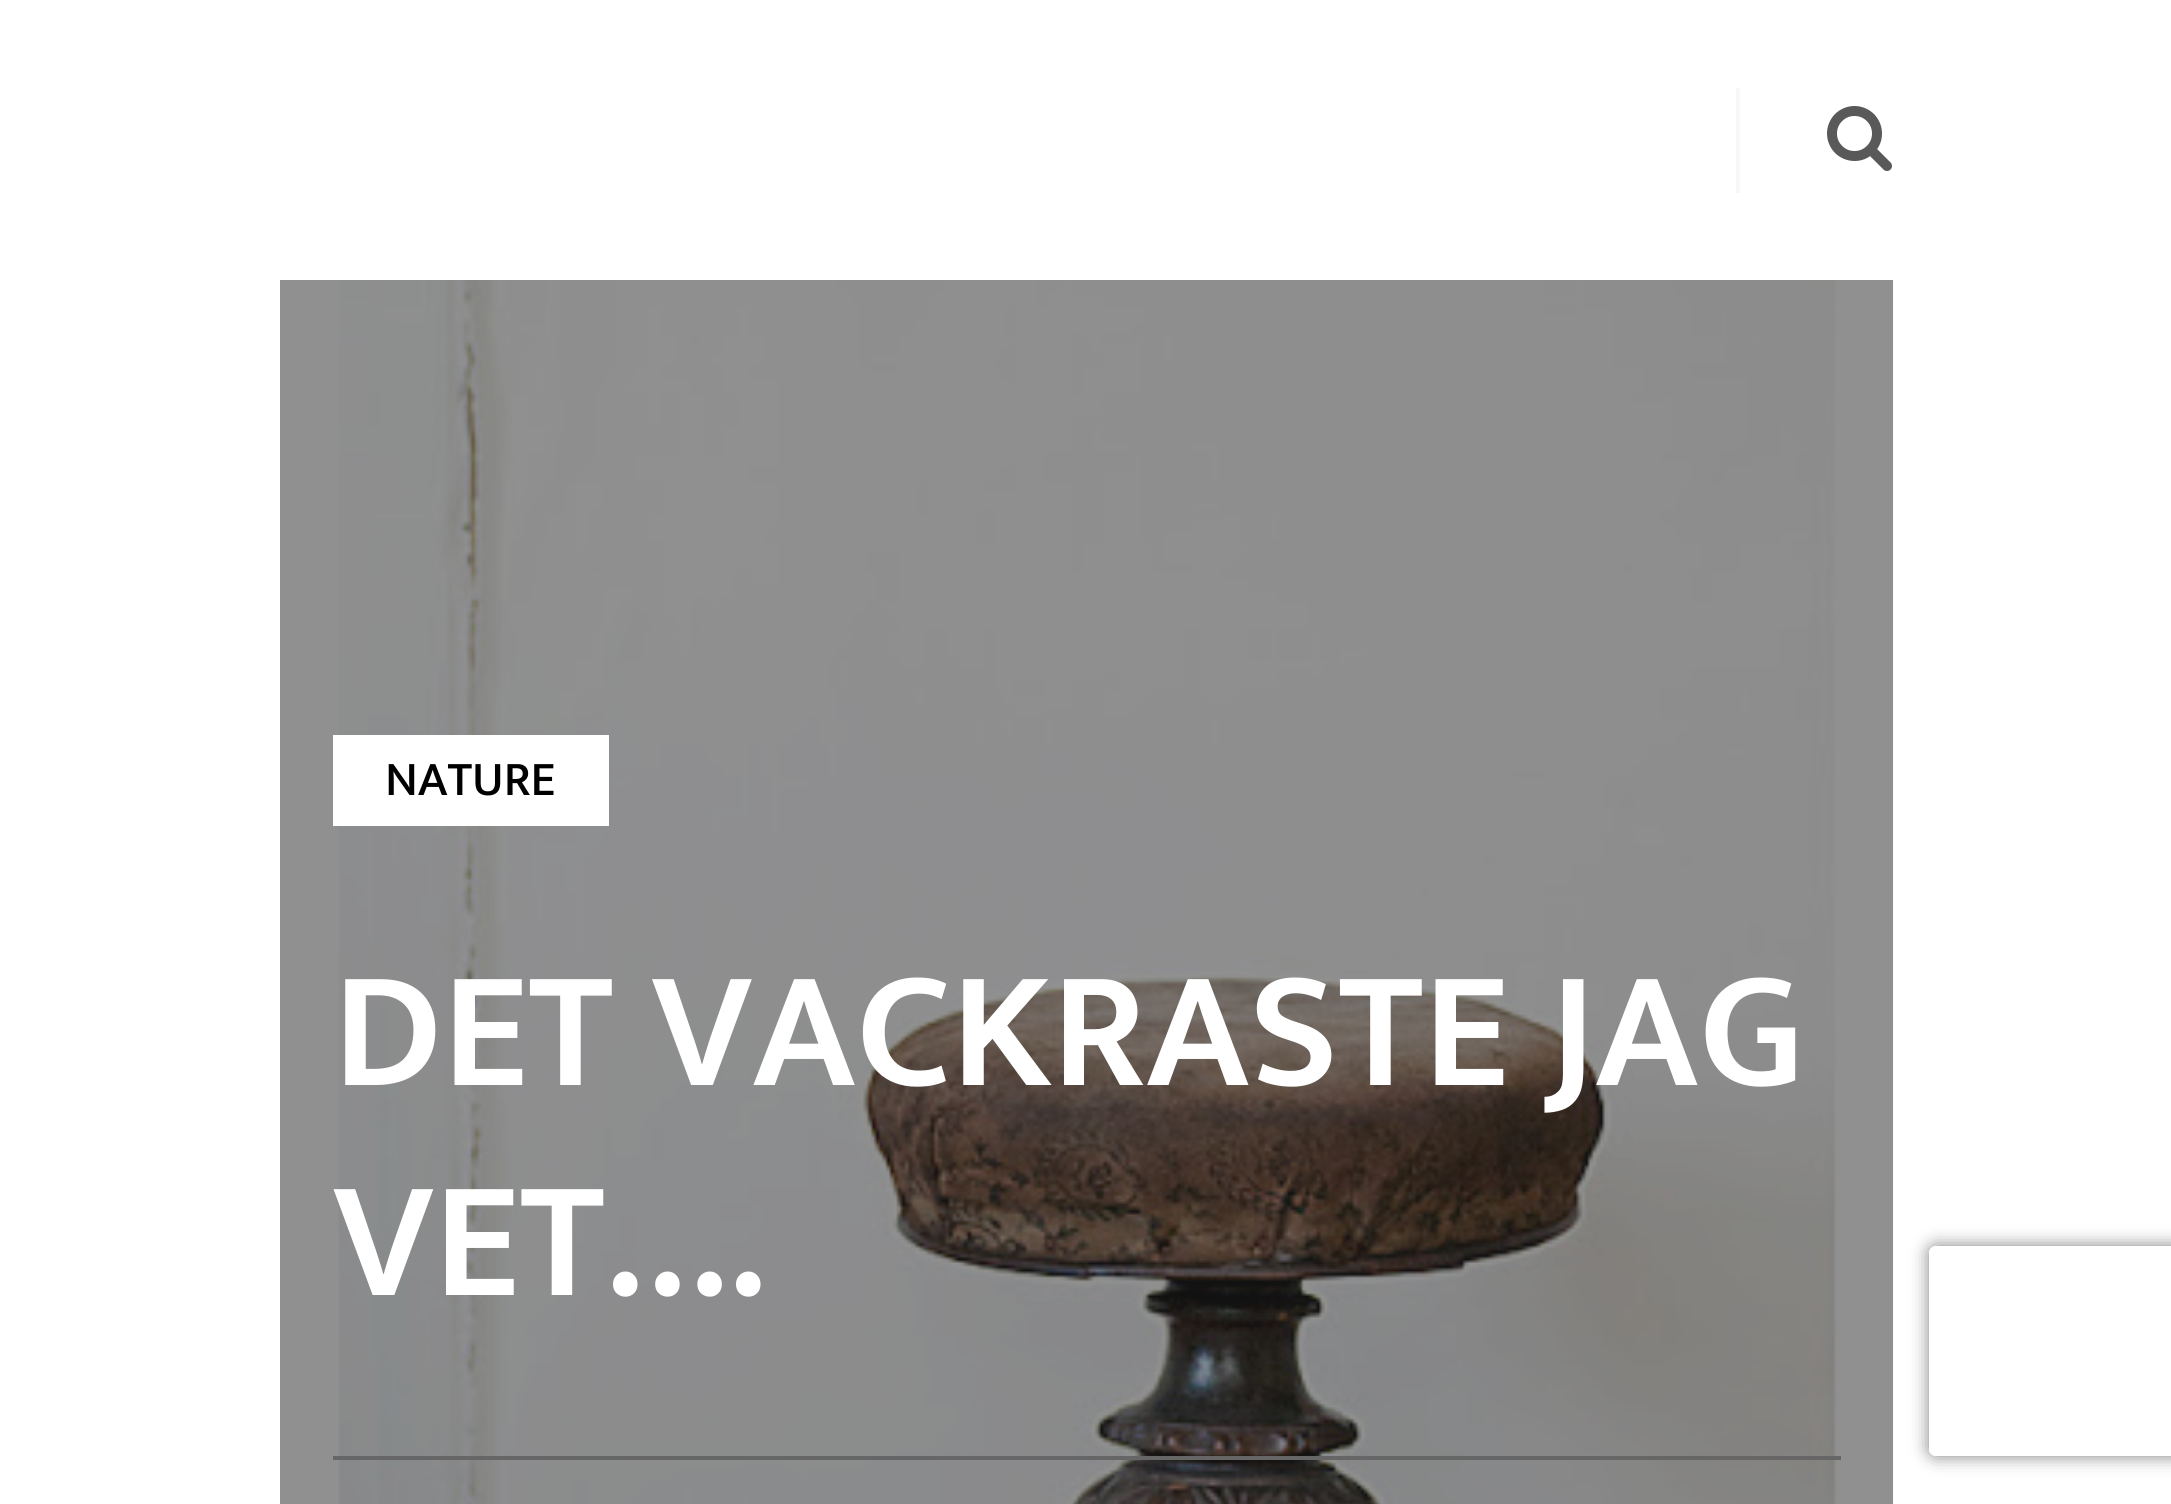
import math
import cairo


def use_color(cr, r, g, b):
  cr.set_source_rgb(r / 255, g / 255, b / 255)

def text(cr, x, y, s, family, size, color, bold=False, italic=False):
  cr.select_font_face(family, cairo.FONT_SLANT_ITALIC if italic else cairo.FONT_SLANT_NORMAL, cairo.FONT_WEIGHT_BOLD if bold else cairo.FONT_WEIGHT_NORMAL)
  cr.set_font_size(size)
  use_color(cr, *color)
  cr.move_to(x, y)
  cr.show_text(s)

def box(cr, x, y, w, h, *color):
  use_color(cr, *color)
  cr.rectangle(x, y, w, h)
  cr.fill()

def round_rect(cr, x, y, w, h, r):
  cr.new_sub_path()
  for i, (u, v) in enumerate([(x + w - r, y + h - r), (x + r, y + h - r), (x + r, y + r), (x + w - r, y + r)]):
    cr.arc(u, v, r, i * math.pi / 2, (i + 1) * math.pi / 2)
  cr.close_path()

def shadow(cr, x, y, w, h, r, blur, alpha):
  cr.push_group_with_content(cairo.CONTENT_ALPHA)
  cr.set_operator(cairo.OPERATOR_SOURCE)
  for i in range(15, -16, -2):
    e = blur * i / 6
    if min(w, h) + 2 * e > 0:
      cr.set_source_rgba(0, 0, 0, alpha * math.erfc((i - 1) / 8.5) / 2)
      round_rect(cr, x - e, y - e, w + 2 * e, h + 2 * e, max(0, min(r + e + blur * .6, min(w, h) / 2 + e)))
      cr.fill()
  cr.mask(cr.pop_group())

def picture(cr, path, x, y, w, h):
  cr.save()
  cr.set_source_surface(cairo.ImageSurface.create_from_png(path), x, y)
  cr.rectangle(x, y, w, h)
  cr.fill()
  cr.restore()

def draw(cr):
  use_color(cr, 255, 255, 255)
  cr.paint()
  box(cr, 1736, 88, 4, 105, 247, 247, 247)
  picture(cr, "img_01.png", 1827, 106, 65, 65)
  box(cr, 1893, 280, 1, 1224, 250, 250, 250)
  picture(cr, "img_02.png", 280, 280, 1613, 1224)
  box(cr, 333, 735, 276, 91, 255, 255, 255)
  box(cr, 333, 1456, 1508, 4, 102, 102, 102)
  cr.save()
  cr.set_fill_rule(cairo.FILL_RULE_EVEN_ODD)
  cr.new_path()
  cr.move_to(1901, 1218)
  cr.line_to(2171, 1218)
  cr.line_to(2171, 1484)
  cr.line_to(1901, 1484)
  cr.close_path()
  cr.move_to(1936, 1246)
  cr.line_to(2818, 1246)
  cr.curve_to(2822, 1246, 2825, 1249, 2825, 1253)
  cr.line_to(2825, 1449)
  cr.curve_to(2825, 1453, 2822, 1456, 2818, 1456)
  cr.line_to(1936, 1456)
  cr.curve_to(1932, 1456, 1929, 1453, 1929, 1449)
  cr.line_to(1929, 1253)
  cr.curve_to(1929, 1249, 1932, 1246, 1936, 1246)
  cr.close_path()
  cr.clip()
  use_color(cr, 128, 128, 128)
  shadow(cr, 1929, 1246, 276, 210, 7, 9, 1)
  cr.restore()
  text(cr, 385, 795, "NATURE", "Mukta Medium", 49, (0, 0, 0))
  text(cr, 333, 1085, "DET VACKRASTE JAG", "Mukta SemiBold", 168, (255, 255, 255))
  text(cr, 333, 1295, "VET….", "Mukta SemiBold", 168, (255, 255, 255))


surface = cairo.ImageSurface(cairo.FORMAT_RGB24, 2171, 1504)
cr = cairo.Context(surface)
options = cairo.FontOptions()
options.set_hint_metrics(cairo.HINT_METRICS_OFF)
options.set_hint_style(cairo.HINT_STYLE_NONE)
cr.set_font_options(options)
cr.set_miter_limit(4)
draw(cr)
surface.write_to_png("out.png")
